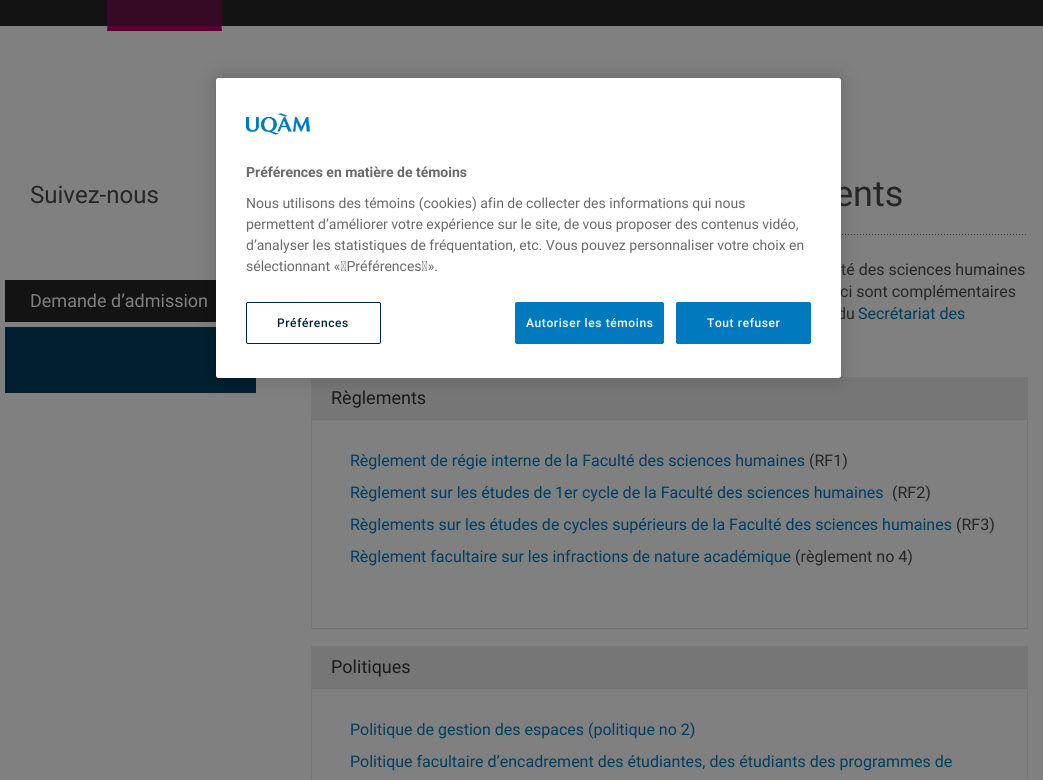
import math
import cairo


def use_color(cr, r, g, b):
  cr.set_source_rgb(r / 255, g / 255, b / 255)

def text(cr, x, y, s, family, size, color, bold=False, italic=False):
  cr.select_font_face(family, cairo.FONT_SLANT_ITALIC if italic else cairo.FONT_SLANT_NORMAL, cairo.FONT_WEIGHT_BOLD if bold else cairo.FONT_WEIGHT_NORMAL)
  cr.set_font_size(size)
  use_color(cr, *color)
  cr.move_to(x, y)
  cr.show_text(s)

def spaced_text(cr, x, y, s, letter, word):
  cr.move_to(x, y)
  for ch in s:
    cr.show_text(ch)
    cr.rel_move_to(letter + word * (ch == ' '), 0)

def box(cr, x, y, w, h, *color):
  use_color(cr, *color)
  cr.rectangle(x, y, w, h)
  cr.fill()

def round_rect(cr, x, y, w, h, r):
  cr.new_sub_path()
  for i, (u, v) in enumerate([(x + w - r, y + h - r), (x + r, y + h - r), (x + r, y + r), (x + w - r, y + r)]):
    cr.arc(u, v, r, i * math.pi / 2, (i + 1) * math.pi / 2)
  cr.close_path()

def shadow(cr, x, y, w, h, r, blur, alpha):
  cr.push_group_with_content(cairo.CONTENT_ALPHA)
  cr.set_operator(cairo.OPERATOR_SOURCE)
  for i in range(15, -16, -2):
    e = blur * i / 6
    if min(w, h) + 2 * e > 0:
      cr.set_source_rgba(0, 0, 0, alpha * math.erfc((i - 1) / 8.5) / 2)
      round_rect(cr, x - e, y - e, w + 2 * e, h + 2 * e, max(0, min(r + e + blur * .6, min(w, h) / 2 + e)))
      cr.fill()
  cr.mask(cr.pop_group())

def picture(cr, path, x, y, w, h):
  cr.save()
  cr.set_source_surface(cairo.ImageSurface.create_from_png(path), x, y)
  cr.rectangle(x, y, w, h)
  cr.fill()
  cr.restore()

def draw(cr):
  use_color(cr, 128, 128, 128)
  cr.paint()
  box(cr, 107, 26, 115, 5, 108, 64, 92)
  box(cr, 5, 280, 211, 42, 19, 19, 19)
  box(cr, 5, 327, 251, 66, 1, 31, 48)
  picture(cr, "img_02.png", 842, 234, 184, 1)
  box(cr, 311, 377, 717, 42, 118, 118, 118)
  use_color(cr, 0, 0, 0)
  shadow(cr, 216, 78, 625, 300, 2.5, 9, 0.2)
  box(cr, 0, 0, 1043, 26, 19, 19, 19)
  box(cr, 107, 0, 115, 26, 54, 10, 37)
  use_color(cr, 88, 0, 55)
  cr.new_path()
  cr.move_to(222, 31)
  cr.line_to(107, 31)
  cr.line_to(108, 26)
  cr.line_to(221, 26)
  cr.close_path()
  cr.fill()
  cr.rectangle(311.5, 419.5, 716, 209)
  use_color(cr, 115, 115, 115)
  cr.set_line_width(1)
  cr.stroke()
  box(cr, 311, 646, 717, 42, 118, 118, 118)
  cr.rectangle(311.5, 688.5, 716, 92)
  use_color(cr, 115, 115, 115)
  cr.stroke()
  text(cr, 30, 203, "Suivez-nous", "Roboto", 24, (38, 38, 38))
  text(cr, 30, 307, "Demande d’admission", "Roboto", 18, (128, 128, 128))
  text(cr, 834, 206, "ents", "Roboto", 36, (38, 38, 38))
  text(cr, 841, 275, "té des sciences humaines", "Roboto", 16, (38, 38, 38))
  text(cr, 840, 297, "ci sont complémentaires", "Roboto", 16, (38, 38, 38))
  text(cr, 837, 319, "du", "Roboto", 16, (38, 38, 38))
  use_color(cr, 255, 255, 255)
  round_rect(cr, 216, 78, 625, 300, 2.5)
  cr.fill()
  round_rect(cr, 246.5, 302.5, 134, 41, 1.5)
  use_color(cr, 0, 37, 57)
  cr.stroke()
  cr.select_font_face("Roboto Medium")
  cr.set_font_size(12)
  spaced_text(cr, 277, 327, "Préférences", 0.6, 0)
  use_color(cr, 0, 121, 190)
  round_rect(cr, 515.5, 302.5, 148, 41, 1.5)
  cr.fill_preserve()
  cr.stroke()
  use_color(cr, 255, 255, 255)
  spaced_text(cr, 526, 327, "Autoriser les témoins", 0.6, 0)
  use_color(cr, 0, 121, 190)
  round_rect(cr, 676.5, 302.5, 134, 41, 1.5)
  cr.fill_preserve()
  cr.stroke()
  use_color(cr, 255, 255, 255)
  spaced_text(cr, 707, 327, "Tout refuser", 0.6, 0)
  picture(cr, "img_01.png", 245, 113, 65, 22)
  text(cr, 246, 271, "sélectionnant « Préférences ».", "Roboto", 14, (105, 105, 105))
  text(cr, 246, 250, "d’analyser les statistiques de fréquentation, etc. Vous pouvez personnaliser votre choix en", "Roboto", 14, (105, 105, 105))
  text(cr, 246, 229, "permettent d’améliorer votre expérience sur le site, de vous proposer des contenus vidéo,", "Roboto", 14, (105, 105, 105))
  text(cr, 246, 208, "Nous utilisons des témoins (cookies) afin de collecter des informations qui nous", "Roboto", 14, (105, 105, 105))
  text(cr, 246, 177, "Préférences en matière de témoins", "Roboto", 14, (105, 105, 105), bold=True)
  text(cr, 858, 319, "Secrétariat des", "Roboto", 16, (0, 61, 95))
  text(cr, 331, 404, "Règlements", "Roboto", 18, (26, 26, 26))
  text(cr, 350, 466, "Règlement de régie interne de la Faculté des sciences humaines", "Roboto", 16, (0, 61, 95))
  text(cr, 809, 466, "(RF1)", "Roboto", 16, (38, 38, 38))
  text(cr, 350, 498, "Règlement sur les études de 1er cycle de la Faculté des sciences humaines", "Roboto", 16, (0, 61, 95))
  text(cr, 892, 498, "(RF2)", "Roboto", 16, (38, 38, 38))
  text(cr, 350, 530, "Règlements sur les études de cycles supérieurs de la Faculté des sciences humaines", "Roboto", 16, (0, 61, 95))
  text(cr, 956, 530, "(RF3)", "Roboto", 16, (38, 38, 38))
  text(cr, 350, 562, "Règlement facultaire sur les infractions de nature académique", "Roboto", 16, (0, 61, 95))
  text(cr, 795, 562, "(règlement no 4)", "Roboto", 16, (38, 38, 38))
  text(cr, 331, 673, "Politiques", "Roboto", 18, (26, 26, 26))
  text(cr, 350, 735, "Politique de gestion des espaces (politique no 2)", "Roboto", 16, (0, 61, 95))
  text(cr, 350, 767, "Politique facultaire d’encadrement des étudiantes, des étudiants des programmes de", "Roboto", 16, (0, 61, 95))


surface = cairo.ImageSurface(cairo.FORMAT_RGB24, 1043, 780)
cr = cairo.Context(surface)
options = cairo.FontOptions()
options.set_hint_metrics(cairo.HINT_METRICS_OFF)
options.set_hint_style(cairo.HINT_STYLE_NONE)
cr.set_font_options(options)
cr.set_miter_limit(4)
draw(cr)
surface.write_to_png("out.png")
